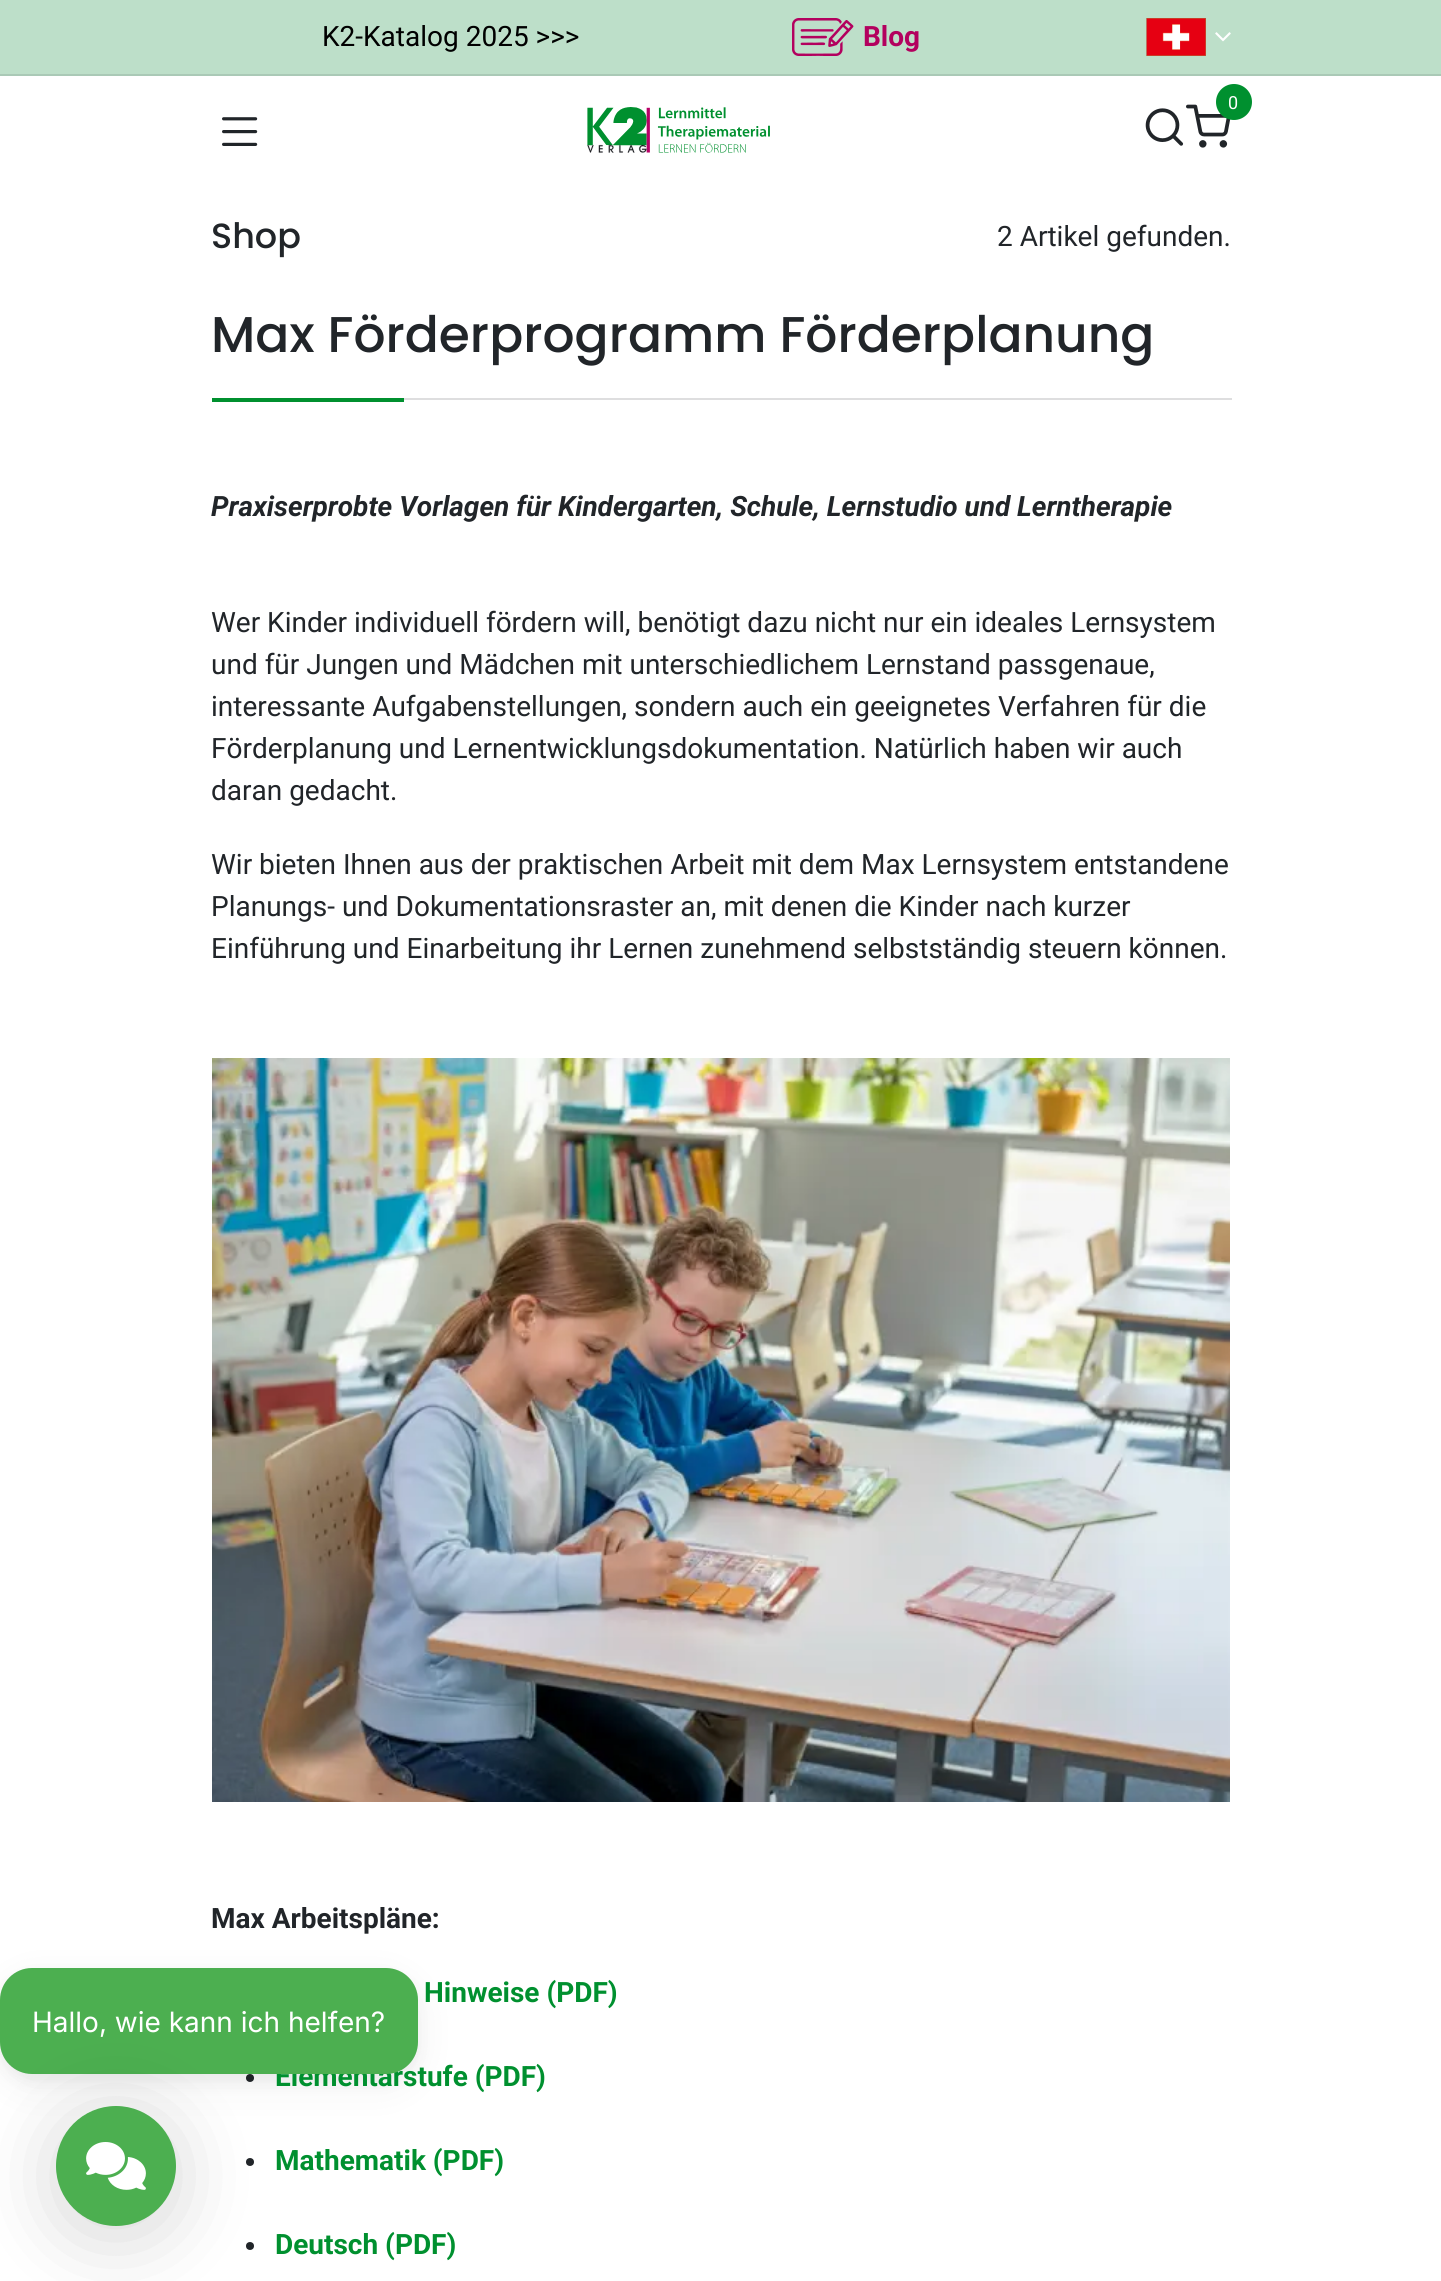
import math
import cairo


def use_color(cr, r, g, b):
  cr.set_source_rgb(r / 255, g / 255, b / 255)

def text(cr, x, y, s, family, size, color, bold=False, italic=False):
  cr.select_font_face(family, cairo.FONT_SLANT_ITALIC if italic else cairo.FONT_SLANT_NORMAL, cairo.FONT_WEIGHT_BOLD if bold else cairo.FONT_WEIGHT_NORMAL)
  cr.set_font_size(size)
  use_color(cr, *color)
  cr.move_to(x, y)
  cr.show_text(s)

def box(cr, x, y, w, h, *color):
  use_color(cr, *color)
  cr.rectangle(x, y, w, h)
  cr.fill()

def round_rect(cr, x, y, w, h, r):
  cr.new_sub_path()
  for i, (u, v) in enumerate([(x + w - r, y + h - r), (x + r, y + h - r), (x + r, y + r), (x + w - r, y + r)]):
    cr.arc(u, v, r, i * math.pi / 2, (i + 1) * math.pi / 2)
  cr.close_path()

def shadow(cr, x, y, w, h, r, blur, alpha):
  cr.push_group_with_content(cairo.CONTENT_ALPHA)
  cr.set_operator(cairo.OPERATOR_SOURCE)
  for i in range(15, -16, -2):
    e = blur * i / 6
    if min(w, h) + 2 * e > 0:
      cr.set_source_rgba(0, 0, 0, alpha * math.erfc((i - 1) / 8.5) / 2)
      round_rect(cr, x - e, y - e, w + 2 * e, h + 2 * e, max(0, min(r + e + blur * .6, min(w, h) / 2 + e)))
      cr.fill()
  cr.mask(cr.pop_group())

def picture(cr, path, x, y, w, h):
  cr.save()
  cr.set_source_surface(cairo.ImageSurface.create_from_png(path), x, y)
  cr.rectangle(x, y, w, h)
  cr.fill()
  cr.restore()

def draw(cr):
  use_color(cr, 255, 255, 255)
  cr.paint()
  use_color(cr, 33, 37, 41)
  cr.arc(250, 2078, 4, 0, 2 * math.pi)
  cr.fill()
  use_color(cr, 0, 0, 0)
  shadow(cr, 0, 1980, 418, 106, 32, 20, 0.05)
  shadow(cr, 0, 1976, 418, 106, 32, 8, 0.05)
  box(cr, 0, 0, 1441, 74, 189, 223, 201)
  box(cr, 0, 74, 1441, 2, 170, 201, 182)
  picture(cr, "img_02.png", 792, 18, 62, 38)
  picture(cr, "img_03.png", 1146, 18, 60, 38)
  picture(cr, "img_04.png", 1215, 32, 16, 10)
  picture(cr, "img_05.png", 1186, 104, 45, 44)
  use_color(cr, 0, 144, 47)
  cr.arc(1234, 102, 18, 0, 2 * math.pi)
  cr.fill()
  picture(cr, "img_06.png", 1145, 108, 39, 38)
  picture(cr, "img_07.png", 222, 117, 36, 29)
  picture(cr, "img_08.png", 587, 107, 183, 46)
  box(cr, 404, 398, 828, 2, 222, 222, 223)
  box(cr, 212, 398, 192, 4, 0, 144, 47)
  picture(cr, "img_09.png", 212, 1058, 1018, 744)
  use_color(cr, 33, 37, 41)
  cr.arc(250, 2162, 4, 0, 2 * math.pi)
  cr.fill()
  cr.arc(250, 2246, 4, 0, 2 * math.pi)
  cr.fill()
  text(cr, 322, 46, "K2-Katalog 2025 >>>", "Roboto", 28, (0, 0, 0))
  text(cr, 863, 46, "Blog", "Roboto", 28, (179, 0, 94), bold=True)
  text(cr, 1228, 109, "0", "Roboto", 18, (255, 255, 255))
  text(cr, 211, 248, "Shop", "Poppins Medium", 35, (33, 37, 41))
  text(cr, 997, 246, "2 Artikel gefunden.", "Roboto", 28, (33, 37, 41))
  text(cr, 211, 352, "Max Förderprogramm Förderplanung", "Poppins Medium", 50.25, (33, 37, 41))
  text(cr, 211, 516, "Praxiserprobte Vorlagen für Kindergarten, Schule, Lernstudio und Lerntherapie", "Roboto", 28, (33, 37, 41), bold=True, italic=True)
  text(cr, 211, 632, "Wer Kinder individuell fördern will, benötigt dazu nicht nur ein ideales Lernsystem", "Roboto", 28, (33, 37, 41))
  text(cr, 211, 674, "und für Jungen und Mädchen mit unterschiedlichem Lernstand passgenaue,", "Roboto", 28, (33, 37, 41))
  text(cr, 211, 716, "interessante Aufgabenstellungen, sondern auch ein geeignetes Verfahren für die", "Roboto", 28, (33, 37, 41))
  text(cr, 211, 758, "Förderplanung und Lernentwicklungsdokumentation. Natürlich haben wir auch", "Roboto", 28, (33, 37, 41))
  text(cr, 211, 800, "daran gedacht.", "Roboto", 28, (33, 37, 41))
  text(cr, 211, 874, "Wir bieten Ihnen aus der praktischen Arbeit mit dem Max Lernsystem entstandene", "Roboto", 28, (33, 37, 41))
  text(cr, 211, 916, "Planungs- und Dokumentationsraster an, mit denen die Kinder nach kurzer", "Roboto", 28, (33, 37, 41))
  text(cr, 211, 958, "Einführung und Einarbeitung ihr Lernen zunehmend selbstständig steuern können.", "Roboto", 28, (33, 37, 41))
  text(cr, 211, 1928, "Max Arbeitspläne:", "Roboto", 28, (33, 37, 41), bold=True)
  text(cr, 424, 2002, "Hinweise (PDF)", "Roboto", 28, (0, 144, 47), bold=True)
  text(cr, 275, 2086, "Elementarstufe (PDF)", "Roboto", 28, (0, 144, 47), bold=True)
  use_color(cr, 76, 175, 80)
  round_rect(cr, 0, 1968, 418, 106, 32)
  cr.fill()
  use_color(cr, 0, 0, 0)
  shadow(cr, 56, 2116, 120, 120, 60, 40, 0.16)
  use_color(cr, 76, 175, 80)
  cr.arc(116, 2166, 60, 0, 2 * math.pi)
  cr.fill()
  picture(cr, "img_01.png", 86, 2142, 60, 48)
  text(cr, 32, 2032, "Hallo, wie kann ich helfen?", "Inter", 28, (255, 255, 255))
  text(cr, 275, 2170, "Mathematik (PDF)", "Roboto", 28, (0, 144, 47), bold=True)
  text(cr, 275, 2254, "Deutsch (PDF)", "Roboto", 28, (0, 144, 47), bold=True)


surface = cairo.ImageSurface(cairo.FORMAT_RGB24, 1441, 2281)
cr = cairo.Context(surface)
options = cairo.FontOptions()
options.set_hint_metrics(cairo.HINT_METRICS_OFF)
options.set_hint_style(cairo.HINT_STYLE_NONE)
cr.set_font_options(options)
cr.set_miter_limit(4)
draw(cr)
surface.write_to_png("out.png")
